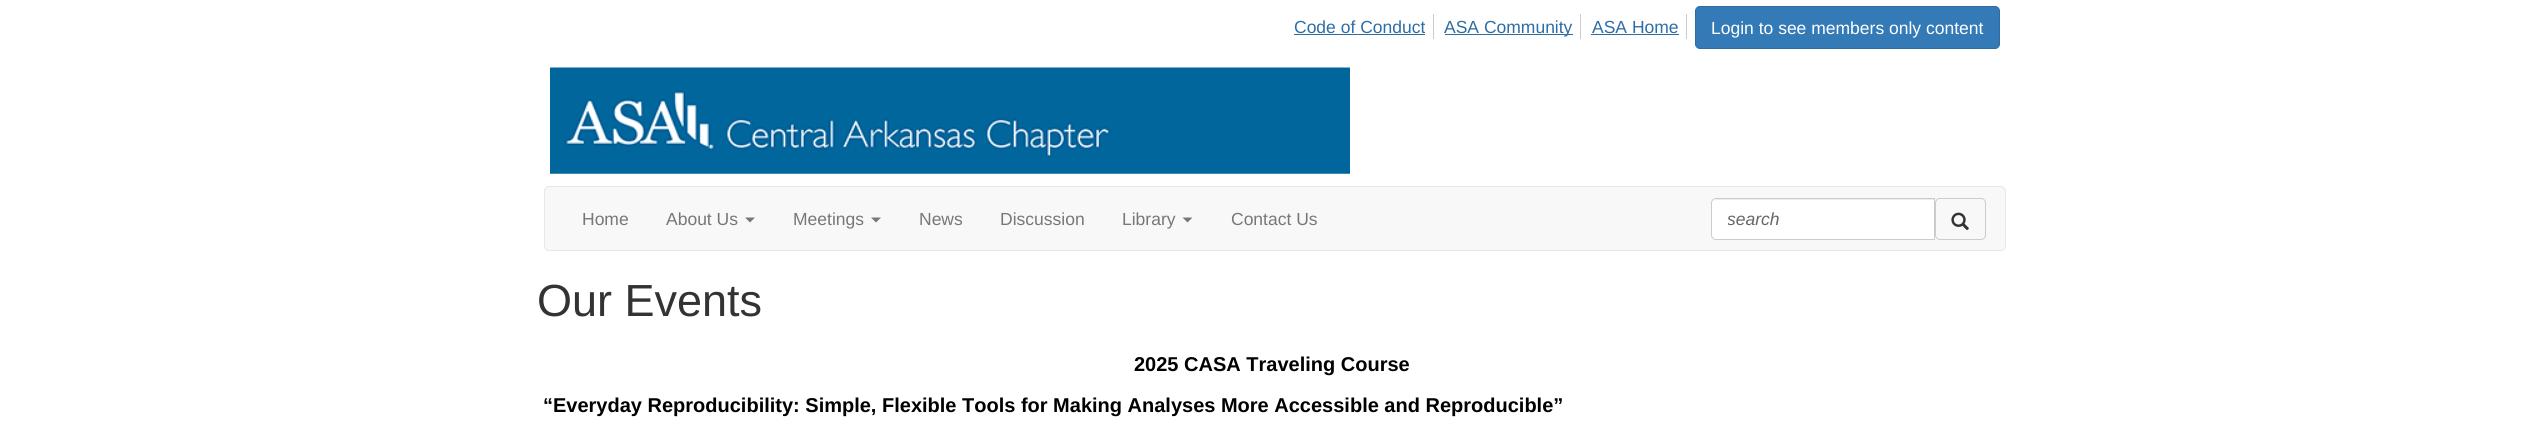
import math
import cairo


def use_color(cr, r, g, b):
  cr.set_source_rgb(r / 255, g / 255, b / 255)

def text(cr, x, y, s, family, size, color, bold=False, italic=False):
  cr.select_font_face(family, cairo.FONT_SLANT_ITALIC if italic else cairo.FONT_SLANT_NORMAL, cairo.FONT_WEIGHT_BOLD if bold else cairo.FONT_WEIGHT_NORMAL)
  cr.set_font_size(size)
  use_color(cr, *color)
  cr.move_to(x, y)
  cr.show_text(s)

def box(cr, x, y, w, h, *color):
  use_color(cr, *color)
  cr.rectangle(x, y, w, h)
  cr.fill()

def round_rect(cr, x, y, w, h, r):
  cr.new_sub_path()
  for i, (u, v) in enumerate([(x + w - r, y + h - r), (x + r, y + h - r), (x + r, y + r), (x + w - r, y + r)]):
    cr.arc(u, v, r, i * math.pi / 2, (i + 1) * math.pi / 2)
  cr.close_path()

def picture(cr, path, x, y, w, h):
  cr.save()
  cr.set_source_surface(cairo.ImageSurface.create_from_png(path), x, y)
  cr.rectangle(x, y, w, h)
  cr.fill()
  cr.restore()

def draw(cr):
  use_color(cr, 255, 255, 255)
  cr.paint()
  box(cr, 1433, 14, 1, 25, 204, 204, 204)
  box(cr, 1294, 34, 131, 1, 46, 109, 164)
  box(cr, 1580, 14, 1, 25, 204, 204, 204)
  box(cr, 1445, 34, 128, 1, 46, 109, 164)
  box(cr, 1686, 14, 1, 25, 204, 204, 204)
  box(cr, 1591, 34, 88, 1, 46, 109, 164)
  use_color(cr, 51, 122, 183)
  round_rect(cr, 1695.5, 6.5, 304, 42, 4.5)
  cr.fill_preserve()
  use_color(cr, 46, 109, 164)
  cr.set_line_width(1)
  cr.stroke()
  picture(cr, "img_01.png", 550, 67, 800, 107)
  use_color(cr, 248, 248, 248)
  round_rect(cr, 544.5, 186.5, 1461, 64, 4.5)
  cr.fill_preserve()
  use_color(cr, 231, 231, 231)
  cr.stroke()
  use_color(cr, 119, 119, 119)
  cr.new_path()
  cr.move_to(745, 217.5)
  cr.line_to(755, 217.5)
  cr.line_to(750, 222.5)
  cr.close_path()
  cr.fill()
  cr.new_path()
  cr.move_to(871, 217.5)
  cr.line_to(881, 217.5)
  cr.line_to(876, 222.5)
  cr.close_path()
  cr.fill()
  cr.new_path()
  cr.move_to(1182.5, 217.5)
  cr.line_to(1192.5, 217.5)
  cr.line_to(1187.5, 222.5)
  cr.close_path()
  cr.fill()
  use_color(cr, 255, 255, 255)
  cr.new_path()
  cr.move_to(1716, 198)
  cr.line_to(1935, 198)
  cr.line_to(1935, 240)
  cr.line_to(1716, 240)
  cr.curve_to(1713, 240, 1711, 238, 1711, 235)
  cr.line_to(1711, 203)
  cr.curve_to(1711, 200, 1713, 198, 1716, 198)
  cr.close_path()
  cr.fill()
  use_color(cr, 236, 236, 236)
  cr.new_path()
  cr.move_to(1716, 200)
  cr.line_to(1934, 200)
  cr.line_to(1934, 199)
  cr.line_to(1717, 199)
  cr.curve_to(1716, 199, 1714, 200, 1714, 201)
  cr.close_path()
  cr.fill()
  cr.new_path()
  cr.move_to(1716, 198.5)
  cr.line_to(1934.5, 198.5)
  cr.line_to(1934.5, 239.5)
  cr.line_to(1716, 239.5)
  cr.curve_to(1713.5, 239.5, 1711.5, 237.5, 1711.5, 235)
  cr.line_to(1711.5, 203)
  cr.curve_to(1711.5, 200.5, 1713.5, 198.5, 1716, 198.5)
  cr.close_path()
  use_color(cr, 204, 204, 204)
  cr.stroke()
  round_rect(cr, 1935.5, 198.5, 50, 41, 4.5)
  cr.stroke()
  picture(cr, "img_02.png", 1951, 212, 18, 18)
  text(cr, 1294, 33, "Code of Conduct", "Liberation Sans", 17.5, (46, 109, 164))
  text(cr, 1444, 33, "ASA Community", "Liberation Sans", 17.5, (46, 109, 164))
  text(cr, 1592, 33, "ASA Home", "Liberation Sans", 17.5, (46, 109, 164))
  text(cr, 1711, 34, "Login to see members only content", "Liberation Sans", 17.5, (255, 255, 255))
  text(cr, 582, 225, "Home", "Liberation Sans", 17.5, (119, 119, 119))
  text(cr, 666, 225, "About Us", "Liberation Sans", 17.5, (119, 119, 119))
  text(cr, 793, 225, "Meetings", "Liberation Sans", 17.5, (119, 119, 119))
  text(cr, 919, 225, "News", "Liberation Sans", 17.5, (119, 119, 119))
  text(cr, 1000, 225, "Discussion", "Liberation Sans", 17.5, (119, 119, 119))
  text(cr, 1122, 225, "Library", "Liberation Sans", 17.5, (119, 119, 119))
  text(cr, 1231, 225, "Contact Us", "Liberation Sans", 17.5, (119, 119, 119))
  cr.save()
  cr.rectangle(1728, 209, 191, 20)
  cr.clip()
  text(cr, 1727, 225, "search", "Liberation Sans", 17.5, (102, 102, 102), italic=True)
  cr.restore()
  text(cr, 537, 316, "Our Events", "Liberation Sans", 45, (51, 51, 51))
  text(cr, 1134, 371, "2025 CASA Traveling Course", "Liberation Sans", 20, (0, 0, 0), bold=True)
  text(cr, 543, 412, "“Everyday Reproducibility: Simple, Flexible Tools for Making Analyses More Accessible and Reproducible”", "Liberation Sans", 20, (0, 0, 0), bold=True)


surface = cairo.ImageSurface(cairo.FORMAT_RGB24, 2548, 433)
cr = cairo.Context(surface)
options = cairo.FontOptions()
options.set_hint_metrics(cairo.HINT_METRICS_OFF)
options.set_hint_style(cairo.HINT_STYLE_NONE)
cr.set_font_options(options)
cr.set_miter_limit(4)
draw(cr)
surface.write_to_png("out.png")
